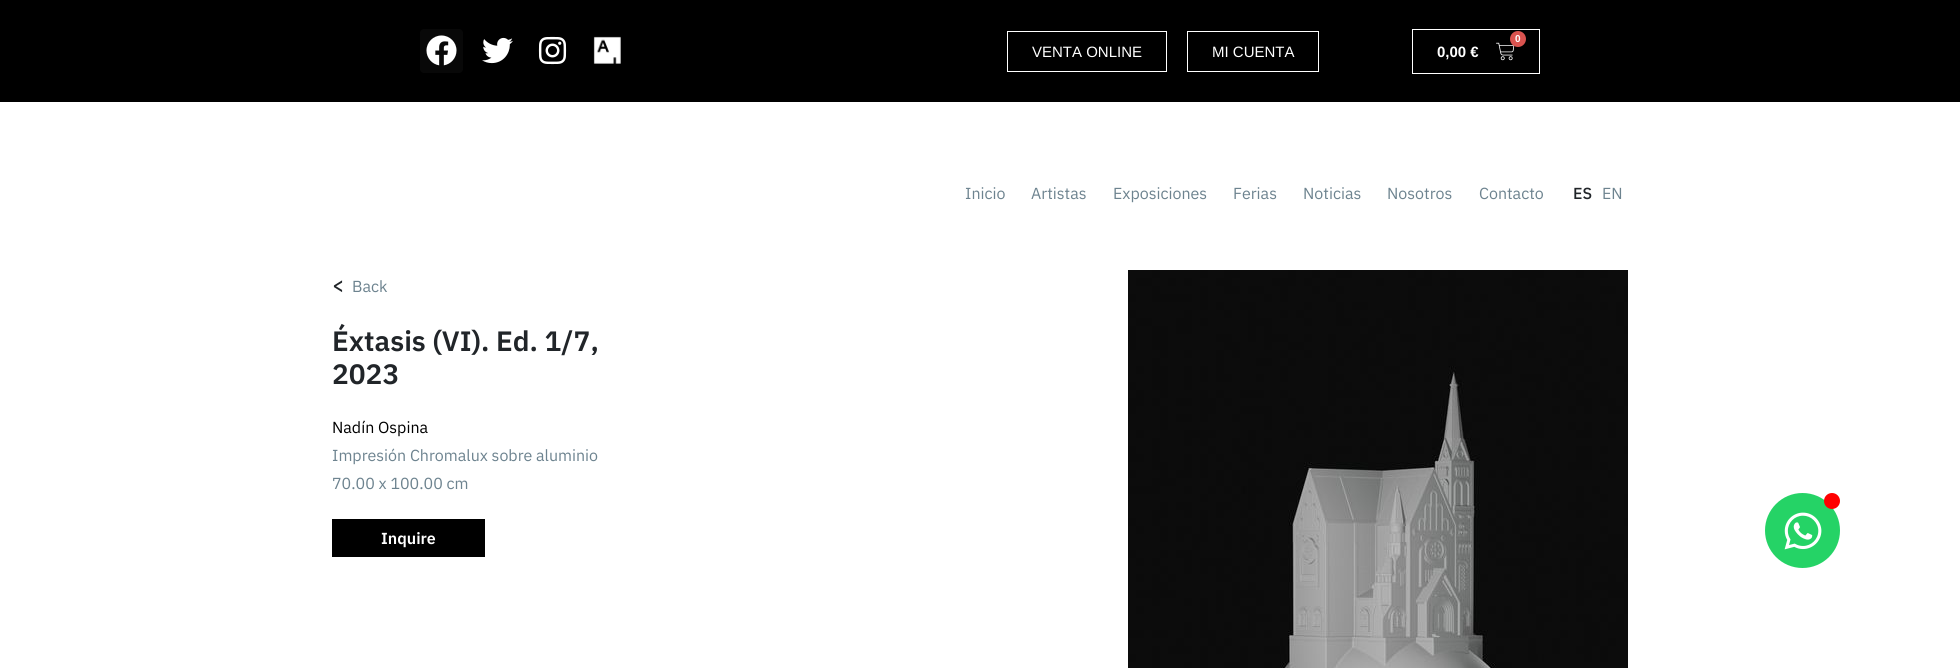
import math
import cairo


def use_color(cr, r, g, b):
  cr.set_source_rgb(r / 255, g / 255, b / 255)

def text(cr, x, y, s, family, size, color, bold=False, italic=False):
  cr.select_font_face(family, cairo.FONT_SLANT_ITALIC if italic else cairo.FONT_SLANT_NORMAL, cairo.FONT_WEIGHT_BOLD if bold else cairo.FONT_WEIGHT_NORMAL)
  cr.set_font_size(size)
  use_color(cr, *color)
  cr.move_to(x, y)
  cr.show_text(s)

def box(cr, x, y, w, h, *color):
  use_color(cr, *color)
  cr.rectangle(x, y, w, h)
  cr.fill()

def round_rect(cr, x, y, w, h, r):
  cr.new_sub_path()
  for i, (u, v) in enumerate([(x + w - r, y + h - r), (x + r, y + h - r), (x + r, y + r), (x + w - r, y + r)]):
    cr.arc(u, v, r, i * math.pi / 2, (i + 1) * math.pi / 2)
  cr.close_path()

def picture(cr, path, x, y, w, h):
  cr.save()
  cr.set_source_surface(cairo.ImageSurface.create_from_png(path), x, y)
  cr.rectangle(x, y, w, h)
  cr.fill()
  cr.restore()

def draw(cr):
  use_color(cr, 255, 255, 255)
  cr.paint()
  box(cr, 0, 0, 1960, 102, 0, 0, 0)
  use_color(cr, 8, 8, 8)
  round_rect(cr, 420, 29, 43, 44, 4)
  cr.fill()
  picture(cr, "img_01.png", 426, 35, 31, 31)
  picture(cr, "img_02.png", 482, 37, 31, 27)
  picture(cr, "img_03.png", 538, 36, 29, 29)
  picture(cr, "img_04.png", 593, 36, 28, 28)
  cr.rectangle(1007.5, 31.5, 159, 40)
  use_color(cr, 255, 255, 255)
  cr.set_line_width(1)
  cr.stroke()
  cr.rectangle(1187.5, 31.5, 131, 40)
  cr.stroke()
  cr.rectangle(1412.5, 29.5, 127, 44)
  cr.stroke()
  picture(cr, "img_05.png", 1496, 42, 19, 19)
  use_color(cr, 217, 83, 79)
  cr.arc(1518, 39, 8, 0, 2 * math.pi)
  cr.fill()
  box(cr, 332, 519, 153, 38, 0, 0, 0)
  picture(cr, "img_06.png", 1128, 270, 500, 398)
  use_color(cr, 37, 211, 102)
  cr.arc(1802.5, 530.5, 37.5, 0, 2 * math.pi)
  cr.fill()
  use_color(cr, 255, 0, 0)
  cr.arc(1832, 501, 8, 0, 2 * math.pi)
  cr.fill()
  picture(cr, "img_07.png", 1784, 512, 38, 38)
  text(cr, 1032, 57, "VENTA ONLINE", "Liberation Sans", 15, (255, 255, 255))
  text(cr, 1212, 57, "MI CUENTA", "Liberation Sans", 15, (255, 255, 255))
  text(cr, 1515, 42, "0", "Liberation Sans", 10, (255, 255, 255), bold=True)
  text(cr, 1437, 57, "0,00 €", "Liberation Sans", 15, (255, 255, 255), bold=True)
  text(cr, 965, 199, "Inicio", "IBM Plex Sans", 16, (109, 131, 143))
  text(cr, 1031, 199, "Artistas", "IBM Plex Sans", 16, (109, 131, 143))
  text(cr, 1113, 199, "Exposiciones", "IBM Plex Sans", 16, (109, 131, 143))
  text(cr, 1233, 199, "Ferias", "IBM Plex Sans", 16, (109, 131, 143))
  text(cr, 1303, 199, "Noticias", "IBM Plex Sans", 16, (109, 131, 143))
  text(cr, 1387, 199, "Nosotros", "IBM Plex Sans", 16, (109, 131, 143))
  text(cr, 1479, 199, "Contacto", "IBM Plex Sans", 16, (109, 131, 143))
  text(cr, 1573, 199, "ES", "IBM Plex Sans Medium", 16, (33, 37, 41))
  text(cr, 1602, 199, "EN", "IBM Plex Sans", 16, (109, 131, 143))
  text(cr, 332, 292, "<", "IBM Plex Sans Medium", 20, (33, 37, 41))
  text(cr, 352, 292, "Back", "IBM Plex Sans", 16, (109, 131, 143))
  text(cr, 332, 351, "Éxtasis (VI). Ed. 1/7,", "IBM Plex Sans SemiBold", 28, (33, 37, 41))
  text(cr, 332, 384, "2023", "IBM Plex Sans SemiBold", 28, (33, 37, 41))
  text(cr, 332, 433, "Nadín Ospina", "IBM Plex Sans", 16, (0, 0, 0))
  text(cr, 332, 461, "Impresión Chromalux sobre aluminio", "IBM Plex Sans", 16, (109, 131, 143))
  text(cr, 332, 489, "70.00 x 100.00 cm", "IBM Plex Sans", 16, (109, 131, 143))
  text(cr, 381, 544, "Inquire", "IBM Plex Sans SemiBold", 16, (255, 255, 255))


surface = cairo.ImageSurface(cairo.FORMAT_RGB24, 1960, 668)
cr = cairo.Context(surface)
options = cairo.FontOptions()
options.set_hint_metrics(cairo.HINT_METRICS_OFF)
options.set_hint_style(cairo.HINT_STYLE_NONE)
cr.set_font_options(options)
cr.set_miter_limit(4)
draw(cr)
surface.write_to_png("out.png")
